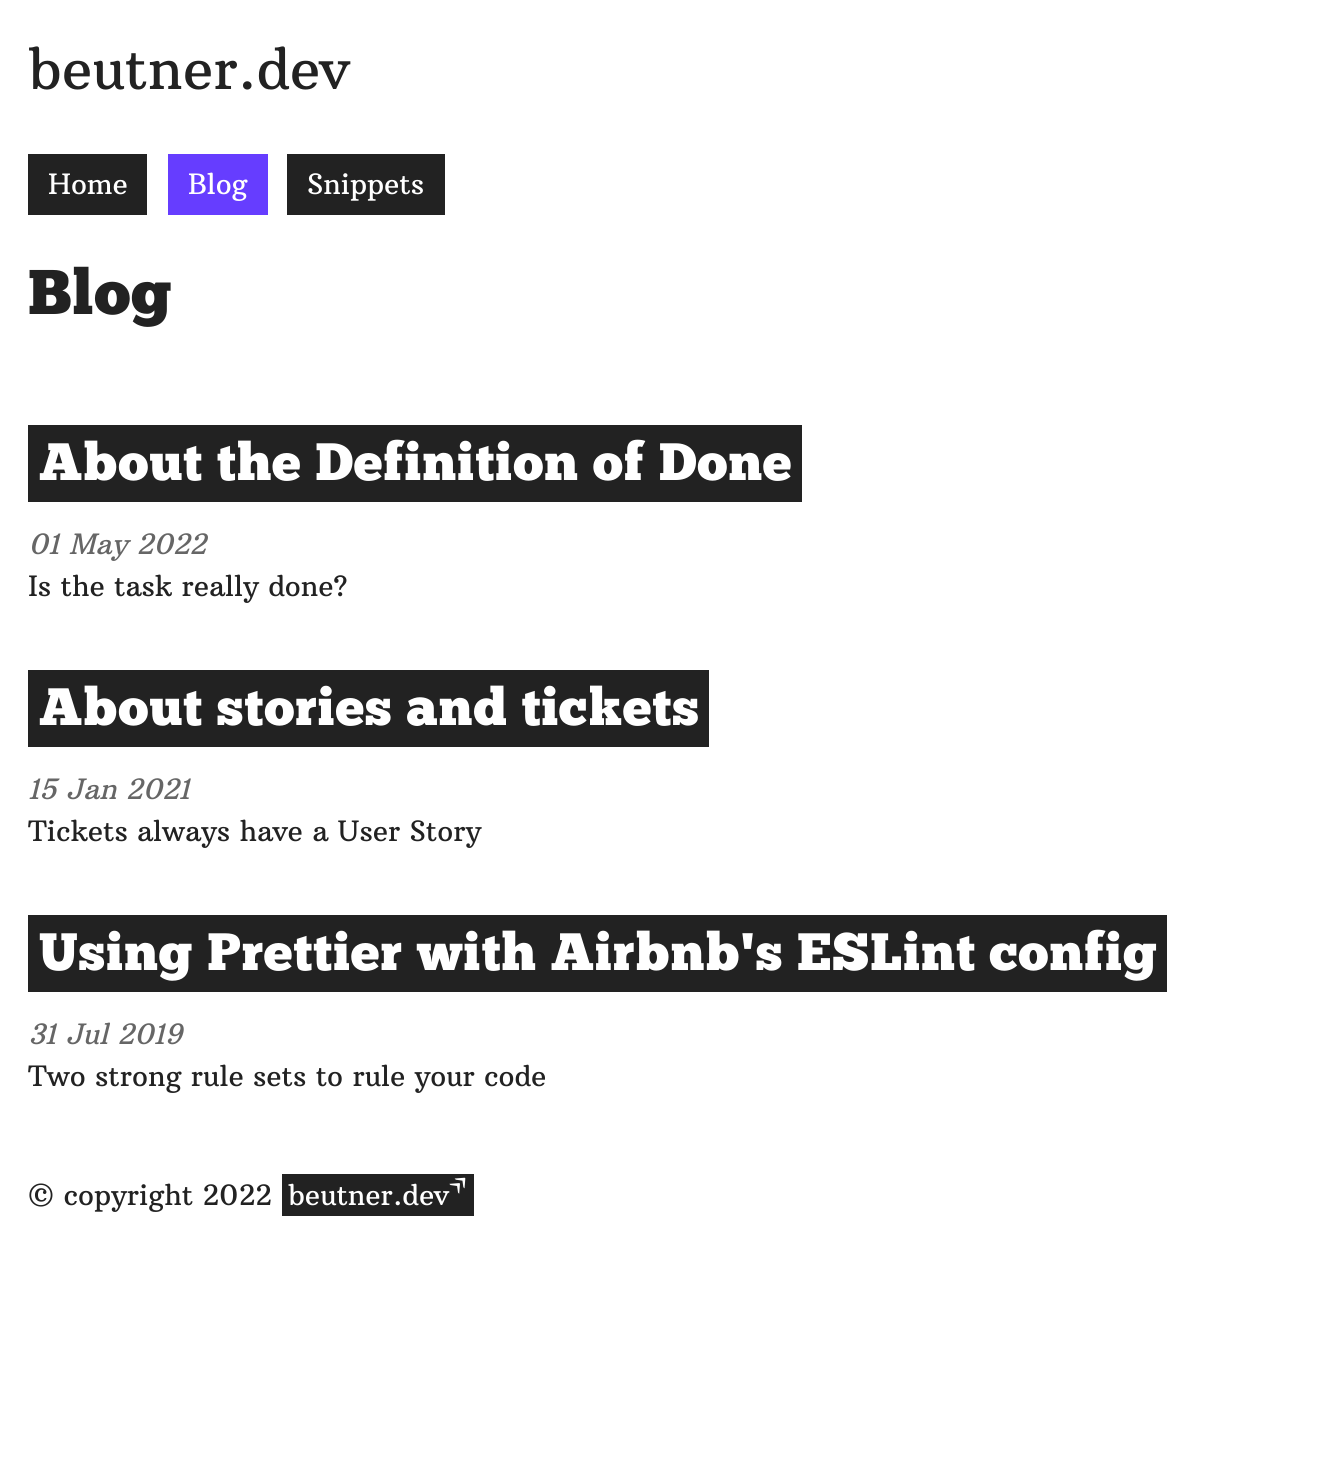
import math
import cairo


def use_color(cr, r, g, b):
  cr.set_source_rgb(r / 255, g / 255, b / 255)

def text(cr, x, y, s, family, size, color, bold=False, italic=False):
  cr.select_font_face(family, cairo.FONT_SLANT_ITALIC if italic else cairo.FONT_SLANT_NORMAL, cairo.FONT_WEIGHT_BOLD if bold else cairo.FONT_WEIGHT_NORMAL)
  cr.set_font_size(size)
  use_color(cr, *color)
  cr.move_to(x, y)
  cr.show_text(s)

def spaced_text(cr, x, y, s, letter, word):
  cr.move_to(x, y)
  for ch in s:
    cr.show_text(ch)
    cr.rel_move_to(letter + word * (ch == ' '), 0)

def box(cr, x, y, w, h, *color):
  use_color(cr, *color)
  cr.rectangle(x, y, w, h)
  cr.fill()

def draw(cr):
  use_color(cr, 255, 255, 255)
  cr.paint()
  box(cr, 28, 154, 119, 61, 34, 34, 34)
  box(cr, 168, 154, 100, 61, 102, 61, 255)
  box(cr, 287, 154, 158, 61, 34, 34, 34)
  box(cr, 28, 425, 774, 77, 34, 34, 34)
  box(cr, 28, 670, 681, 77, 34, 34, 34)
  box(cr, 28, 915, 1139, 77, 34, 34, 34)
  box(cr, 282, 1174, 192, 42, 34, 34, 34)
  text(cr, 28, 89, "beutner.dev", "Arbutus Slab", 56, (34, 34, 34))
  text(cr, 48, 194, "Home", "Arbutus Slab", 28, (255, 255, 255))
  text(cr, 188, 194, "Blog", "Arbutus Slab", 28, (255, 255, 255))
  text(cr, 307, 194, "Snippets", "Arbutus Slab", 28, (255, 255, 255))
  cr.select_font_face("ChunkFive")
  cr.set_font_size(63)
  use_color(cr, 34, 34, 34)
  spaced_text(cr, 28, 314, "Blog", 1, 0)
  cr.set_font_size(52.5)
  use_color(cr, 255, 255, 255)
  spaced_text(cr, 39, 480, "About the Definition of Done", 0.8, 0)
  text(cr, 28, 554, "01 May 2022", "Arbutus Slab", 28, (102, 102, 102), italic=True)
  text(cr, 28, 596, "Is the task really done?", "Arbutus Slab", 28, (34, 34, 34))
  cr.select_font_face("ChunkFive")
  cr.set_font_size(52.5)
  use_color(cr, 255, 255, 255)
  spaced_text(cr, 39, 725, "About stories and tickets", 0.8, 0)
  text(cr, 28, 799, "15 Jan 2021", "Arbutus Slab", 28, (102, 102, 102), italic=True)
  text(cr, 28, 841, "Tickets always have a User Story", "Arbutus Slab", 28, (34, 34, 34))
  cr.select_font_face("ChunkFive")
  cr.set_font_size(52.5)
  use_color(cr, 255, 255, 255)
  spaced_text(cr, 39, 970, "Using Prettier with Airbnb's ESLint config", 0.8, 0)
  text(cr, 28, 1044, "31 Jul 2019", "Arbutus Slab", 28, (102, 102, 102), italic=True)
  text(cr, 28, 1086, "Two strong rule sets to rule your code", "Arbutus Slab", 28, (34, 34, 34))
  text(cr, 28, 1205, "© copyright 2022", "Arbutus Slab", 28, (34, 34, 34))
  text(cr, 288, 1205, "beutner.dev", "Arbutus Slab", 28, (255, 255, 255))
  cr.save()
  cr.translate(458, 1195)
  cr.rotate(-45 * math.pi / 180)
  text(cr, 0, 0, "»", "Arbutus Slab", 28, (255, 255, 255))
  cr.restore()


surface = cairo.ImageSurface(cairo.FORMAT_RGB24, 1328, 1463)
cr = cairo.Context(surface)
options = cairo.FontOptions()
options.set_hint_metrics(cairo.HINT_METRICS_OFF)
options.set_hint_style(cairo.HINT_STYLE_NONE)
cr.set_font_options(options)
cr.set_miter_limit(4)
draw(cr)
surface.write_to_png("out.png")
